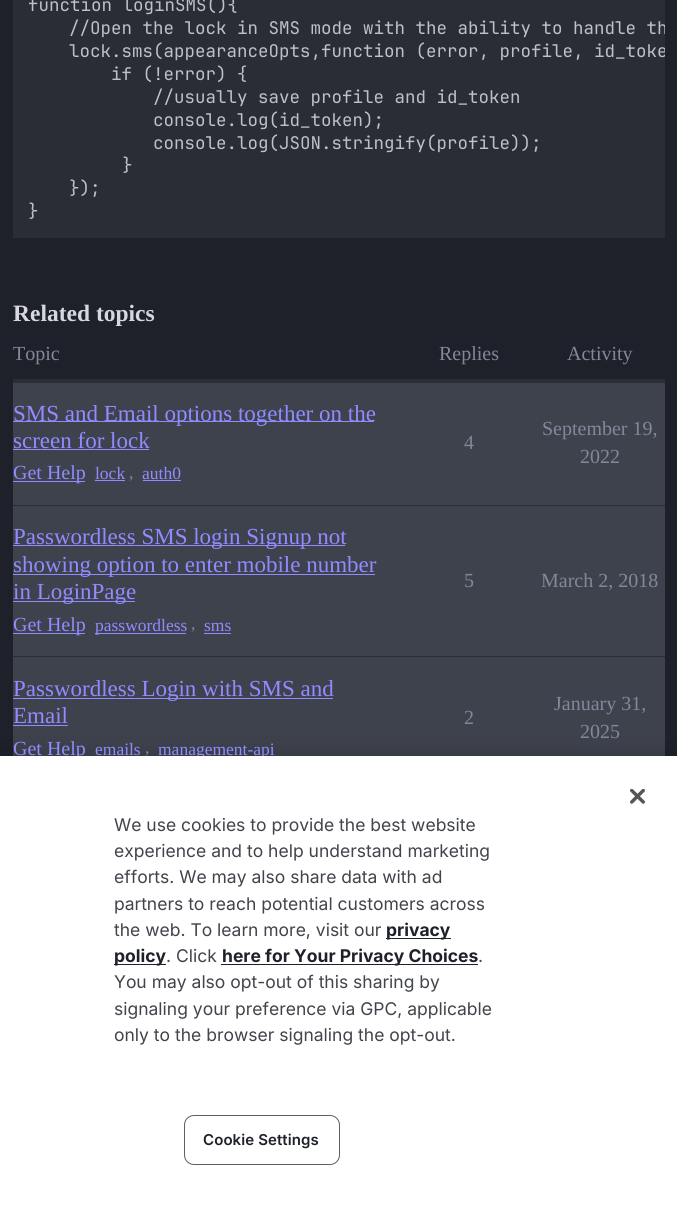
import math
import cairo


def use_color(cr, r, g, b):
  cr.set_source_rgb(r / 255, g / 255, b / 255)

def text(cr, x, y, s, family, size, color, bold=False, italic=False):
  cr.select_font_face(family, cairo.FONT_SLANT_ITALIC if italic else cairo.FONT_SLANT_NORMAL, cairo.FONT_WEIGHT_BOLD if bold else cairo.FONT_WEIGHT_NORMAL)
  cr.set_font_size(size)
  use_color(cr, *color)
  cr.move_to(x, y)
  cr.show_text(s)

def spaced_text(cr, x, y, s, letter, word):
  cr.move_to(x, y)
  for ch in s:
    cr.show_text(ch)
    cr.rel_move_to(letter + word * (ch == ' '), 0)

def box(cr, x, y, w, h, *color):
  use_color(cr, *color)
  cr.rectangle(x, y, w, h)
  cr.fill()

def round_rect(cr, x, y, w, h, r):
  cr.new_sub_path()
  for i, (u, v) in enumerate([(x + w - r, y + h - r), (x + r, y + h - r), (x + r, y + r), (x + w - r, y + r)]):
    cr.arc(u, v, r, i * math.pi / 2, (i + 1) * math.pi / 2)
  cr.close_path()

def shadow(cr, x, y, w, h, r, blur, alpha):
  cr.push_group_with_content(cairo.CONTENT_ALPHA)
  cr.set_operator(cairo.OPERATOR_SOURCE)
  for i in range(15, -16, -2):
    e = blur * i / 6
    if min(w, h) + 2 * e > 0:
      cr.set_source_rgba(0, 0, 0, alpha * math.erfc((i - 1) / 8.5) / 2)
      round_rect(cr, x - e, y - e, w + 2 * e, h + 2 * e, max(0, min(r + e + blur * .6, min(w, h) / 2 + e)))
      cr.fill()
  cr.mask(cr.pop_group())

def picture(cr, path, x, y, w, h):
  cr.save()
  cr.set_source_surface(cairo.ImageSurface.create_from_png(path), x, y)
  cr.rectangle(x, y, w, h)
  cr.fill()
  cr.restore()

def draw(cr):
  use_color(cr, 30, 33, 42)
  cr.paint()
  box(cr, 13, 0, 652, 238, 43, 45, 53)
  box(cr, 13, 379, 652, 4, 43, 45, 53)
  box(cr, 13, 383, 652, 122, 62, 66, 77)
  box(cr, 13, 505, 652, 1, 43, 45, 53)
  box(cr, 13, 421, 361, 1, 144, 139, 255)
  box(cr, 13, 449, 136, 1, 144, 139, 255)
  box(cr, 13, 481, 72, 1, 144, 139, 255)
  box(cr, 95, 480, 30, 1, 144, 139, 255)
  box(cr, 143, 480, 38, 1, 144, 139, 255)
  box(cr, 13, 506, 652, 150, 62, 66, 77)
  box(cr, 13, 656, 652, 1, 43, 45, 53)
  box(cr, 13, 545, 332, 1, 144, 139, 255)
  box(cr, 13, 574, 362, 1, 144, 139, 255)
  box(cr, 13, 601, 122, 1, 144, 139, 255)
  box(cr, 13, 633, 72, 1, 144, 139, 255)
  box(cr, 95, 633, 91, 1, 144, 139, 255)
  box(cr, 204, 633, 27, 1, 144, 139, 255)
  box(cr, 13, 657, 652, 99, 62, 66, 77)
  box(cr, 13, 698, 320, 1, 144, 139, 255)
  box(cr, 13, 725, 55, 1, 144, 139, 255)
  use_color(cr, 0, 0, 0)
  shadow(cr, 0, 756, 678, 459, 0, 11, 0.2)
  text(cr, 28, 11, "function loginSMS(){", "JetBrains Mono", 17.5, (190, 193, 203))
  cr.save()
  round_rect(cr, 13, -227, 652, 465, 5)
  cr.clip()
  text(cr, 69, 34, "//Open the lock in SMS mode with the ability to handle th", "JetBrains Mono", 17.5, (190, 193, 203))
  text(cr, 69, 57, "lock.sms(appearanceOpts,function (error, profile, id_toke", "JetBrains Mono", 17.5, (190, 193, 203))
  cr.restore()
  text(cr, 111, 80, "if (!error) {", "JetBrains Mono", 17.5, (190, 193, 203))
  text(cr, 153, 103, "//usually save profile and id_token", "JetBrains Mono", 17.5, (190, 193, 203))
  text(cr, 153, 126, "console.log(id_token);", "JetBrains Mono", 17.5, (190, 193, 203))
  text(cr, 153, 149, "console.log(JSON.stringify(profile));", "JetBrains Mono", 17.5, (190, 193, 203))
  text(cr, 122, 171, "}", "JetBrains Mono", 17.5, (190, 193, 203))
  text(cr, 69, 194, "});", "JetBrains Mono", 17.5, (190, 193, 203))
  text(cr, 28, 217, "}", "JetBrains Mono", 17.5, (190, 193, 203))
  text(cr, 13, 321, "Related topics", "Liberation Serif", 23.5, (214, 216, 222), bold=True)
  cr.save()
  cr.rectangle(13, 340, 652, 686)
  cr.clip()
  text(cr, 13, 360, "Topic", "Liberation Serif", 20, (129, 136, 154))
  cr.restore()
  text(cr, 439, 360, "Replies", "Liberation Serif", 20, (129, 136, 154))
  text(cr, 567, 360, "Activity", "Liberation Serif", 20, (129, 136, 154))
  text(cr, 13, 421, "SMS and Email options together on the", "Liberation Serif", 23, (144, 139, 255))
  text(cr, 13, 448, "screen for lock", "Liberation Serif", 23, (144, 139, 255))
  text(cr, 13, 479, "Get Help", "Liberation Serif", 20, (144, 139, 255))
  text(cr, 95, 479, "lock", "Liberation Serif", 17.5, (144, 139, 255))
  text(cr, 129, 478, ",", "Liberation Serif", 17.5, (129, 136, 154))
  text(cr, 142, 479, "auth0", "Liberation Serif", 17.5, (144, 139, 255))
  text(cr, 464, 449, "4", "Liberation Serif", 20, (129, 136, 154))
  text(cr, 542, 435, "September 19,", "Liberation Serif", 20, (129, 136, 154))
  text(cr, 580, 463, "2022", "Liberation Serif", 20, (129, 136, 154))
  text(cr, 13, 544, "Passwordless SMS login Signup not", "Liberation Serif", 23, (144, 139, 255))
  text(cr, 13, 572, "showing option to enter mobile number", "Liberation Serif", 23, (144, 139, 255))
  text(cr, 13, 599, "in LoginPage", "Liberation Serif", 23, (144, 139, 255))
  text(cr, 13, 631, "Get Help", "Liberation Serif", 20, (144, 139, 255))
  text(cr, 95, 631, "passwordless", "Liberation Serif", 17.5, (144, 139, 255))
  text(cr, 191, 629, ",", "Liberation Serif", 17.5, (129, 136, 154))
  text(cr, 204, 631, "sms", "Liberation Serif", 17.5, (144, 139, 255))
  text(cr, 464, 587, "5", "Liberation Serif", 20, (129, 136, 154))
  text(cr, 541, 587, "March 2, 2018", "Liberation Serif", 20, (129, 136, 154))
  text(cr, 13, 696, "Passwordless Login with SMS and", "Liberation Serif", 23, (144, 139, 255))
  text(cr, 13, 723, "Email", "Liberation Serif", 23, (144, 139, 255))
  text(cr, 13, 755, "Get Help", "Liberation Serif", 20, (144, 139, 255))
  text(cr, 95, 755, "emails", "Liberation Serif", 17.5, (144, 139, 255))
  text(cr, 145, 753, ",", "Liberation Serif", 17.5, (129, 136, 154))
  text(cr, 158, 755, "management-api", "Liberation Serif", 17.5, (144, 139, 255))
  text(cr, 464, 724, "2", "Liberation Serif", 20, (129, 136, 154))
  text(cr, 554, 710, "January 31,", "Liberation Serif", 20, (129, 136, 154))
  text(cr, 580, 738, "2025", "Liberation Serif", 20, (129, 136, 154))
  box(cr, 0, 756, 677, 459, 255, 255, 255)
  picture(cr, "img_01.png", 630, 789, 15, 15)
  text(cr, 114, 831, "We use cookies to provide the best website", "Inter", 17.5, (65, 68, 75))
  text(cr, 114, 857, "experience and to help understand marketing", "Inter", 17.5, (65, 68, 75))
  text(cr, 114, 883, "efforts. We may also share data with ad", "Inter", 17.5, (65, 68, 75))
  text(cr, 114, 910, "partners to reach potential customers across", "Inter", 17.5, (65, 68, 75))
  text(cr, 114, 936, "the web. To learn more, visit our", "Inter", 17.5, (65, 68, 75))
  box(cr, 386, 938, 65, 1, 30, 33, 42)
  text(cr, 386, 936, "privacy", "Inter", 17.5, (30, 33, 42), bold=True)
  box(cr, 114, 964, 52, 1, 30, 33, 42)
  text(cr, 114, 962, "policy", "Inter", 17.5, (30, 33, 42), bold=True)
  text(cr, 166, 962, ". Click", "Inter", 17.5, (65, 68, 75))
  box(cr, 221, 964, 257, 1, 30, 33, 42)
  text(cr, 222, 962, "here for Your Privacy Choices", "Inter", 17.5, (30, 33, 42), bold=True)
  text(cr, 478, 962, ".", "Inter", 17.5, (65, 68, 75))
  text(cr, 114, 988, "You may also opt-out of this sharing by", "Inter", 17.5, (65, 68, 75))
  text(cr, 114, 1015, "signaling your preference via GPC, applicable", "Inter", 17.5, (65, 68, 75))
  text(cr, 114, 1041, "only to the browser signaling the opt-out.", "Inter", 17.5, (65, 68, 75))
  round_rect(cr, 184.5, 1115.5, 155, 49, 9.5)
  use_color(cr, 90, 95, 102)
  cr.set_line_width(1)
  cr.stroke()
  cr.select_font_face("Inter SemiBold")
  cr.set_font_size(15)
  use_color(cr, 30, 33, 42)
  spaced_text(cr, 203, 1145, "Cookie Settings", 0.1, 0)


surface = cairo.ImageSurface(cairo.FORMAT_RGB24, 677, 1215)
cr = cairo.Context(surface)
options = cairo.FontOptions()
options.set_hint_metrics(cairo.HINT_METRICS_OFF)
options.set_hint_style(cairo.HINT_STYLE_NONE)
cr.set_font_options(options)
cr.set_miter_limit(4)
draw(cr)
surface.write_to_png("out.png")
